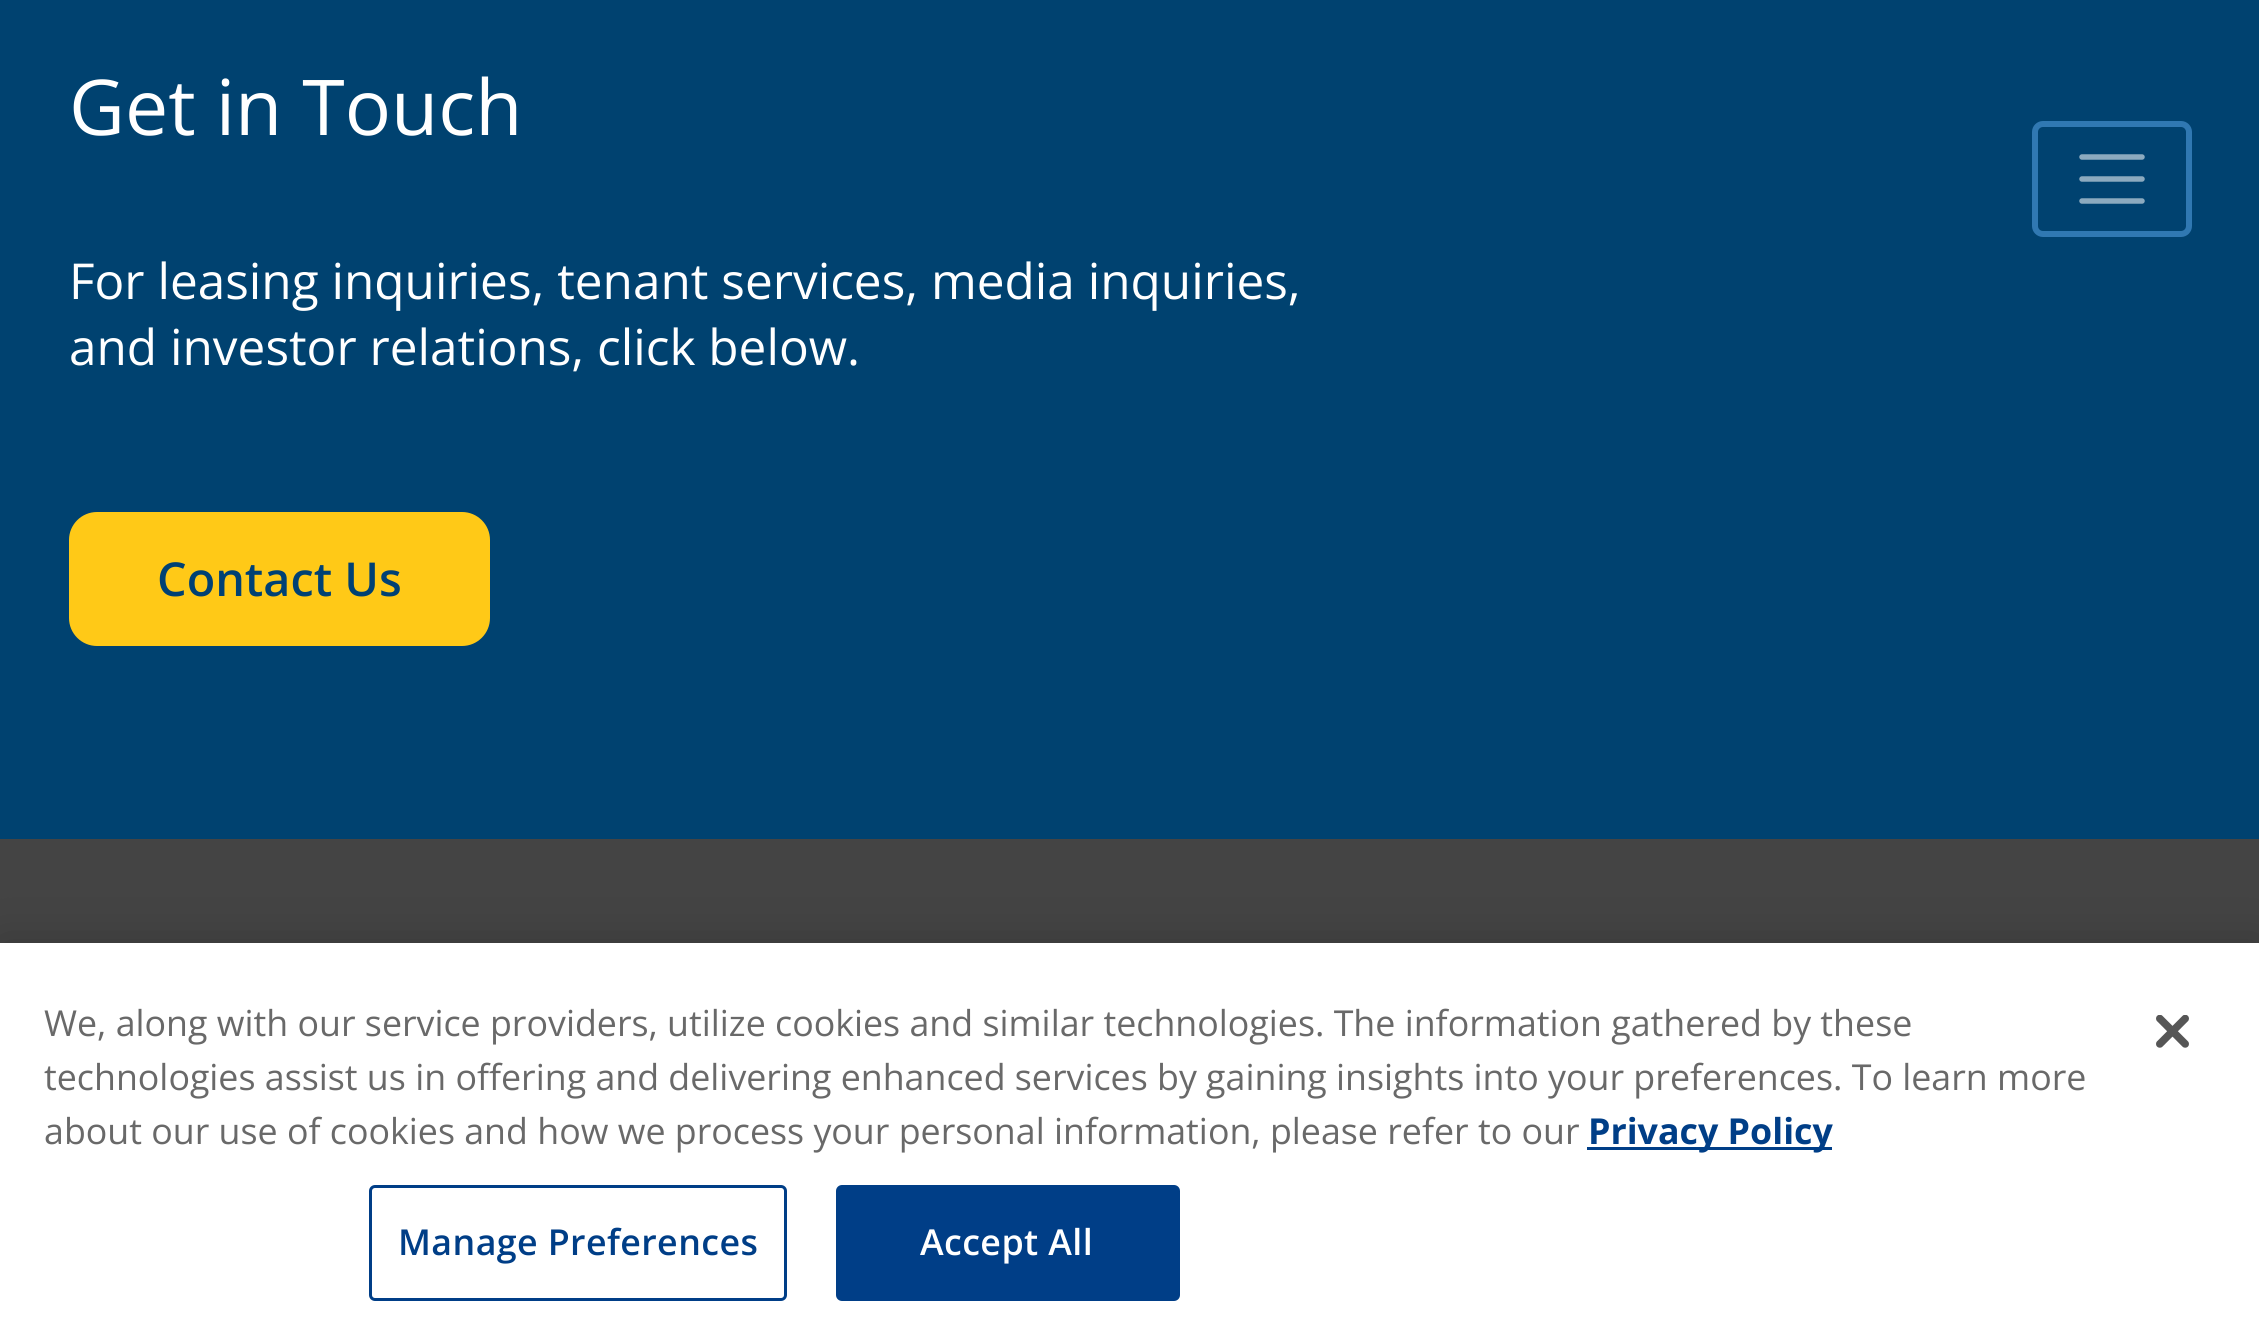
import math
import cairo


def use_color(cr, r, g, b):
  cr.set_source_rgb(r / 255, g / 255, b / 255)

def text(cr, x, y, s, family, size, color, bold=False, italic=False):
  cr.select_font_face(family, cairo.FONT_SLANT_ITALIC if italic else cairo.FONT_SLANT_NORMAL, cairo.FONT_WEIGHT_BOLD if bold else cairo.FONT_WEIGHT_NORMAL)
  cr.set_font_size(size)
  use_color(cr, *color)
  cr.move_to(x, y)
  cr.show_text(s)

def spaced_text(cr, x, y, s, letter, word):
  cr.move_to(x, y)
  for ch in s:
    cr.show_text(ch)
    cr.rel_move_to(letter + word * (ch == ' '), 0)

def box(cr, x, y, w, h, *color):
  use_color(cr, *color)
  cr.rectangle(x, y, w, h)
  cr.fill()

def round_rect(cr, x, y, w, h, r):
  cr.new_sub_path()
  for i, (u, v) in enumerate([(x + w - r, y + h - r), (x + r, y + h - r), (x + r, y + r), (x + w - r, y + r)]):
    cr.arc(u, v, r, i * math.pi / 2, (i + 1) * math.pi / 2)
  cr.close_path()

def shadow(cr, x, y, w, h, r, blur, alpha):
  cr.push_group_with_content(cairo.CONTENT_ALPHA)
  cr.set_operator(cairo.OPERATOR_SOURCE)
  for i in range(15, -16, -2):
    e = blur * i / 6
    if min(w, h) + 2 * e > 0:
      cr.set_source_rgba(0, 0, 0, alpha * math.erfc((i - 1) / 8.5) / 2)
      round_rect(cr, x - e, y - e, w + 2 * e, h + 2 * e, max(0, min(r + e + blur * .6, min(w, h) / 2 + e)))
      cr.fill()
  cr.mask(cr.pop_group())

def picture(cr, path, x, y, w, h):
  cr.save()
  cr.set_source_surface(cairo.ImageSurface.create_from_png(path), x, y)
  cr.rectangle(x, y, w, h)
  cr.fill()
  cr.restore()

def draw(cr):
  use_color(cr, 0, 66, 112)
  cr.paint()
  use_color(cr, 255, 201, 23)
  round_rect(cr, 72, 515, 415, 128, 25)
  cr.fill_preserve()
  cr.set_line_width(6)
  cr.stroke()
  box(cr, 0, 839, 2259, 104, 68, 68, 68)
  round_rect(cr, 2035, 124, 154, 110, 8)
  use_color(cr, 48, 120, 178)
  cr.stroke()
  cr.new_path()
  cr.move_to(2082, 157)
  cr.line_to(2142, 157)
  cr.move_to(2082, 179)
  cr.line_to(2142, 179)
  cr.move_to(2082, 201)
  cr.line_to(2142, 201)
  use_color(cr, 140, 170, 191)
  cr.set_line_width(5.5)
  cr.set_line_cap(cairo.LINE_CAP_ROUND)
  cr.stroke()
  use_color(cr, 0, 0, 0)
  shadow(cr, 0, 943, 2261, 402, 0, 25, 0.2)
  box(cr, 0, 943, 2259, 401, 255, 255, 255)
  box(cr, 1587, 1147, 245, 3, 0, 62, 135)
  round_rect(cr, 370.5, 1186.5, 415, 113, 4.5)
  cr.set_line_width(3)
  cr.set_line_cap(cairo.LINE_CAP_BUTT)
  cr.stroke()
  round_rect(cr, 837.5, 1186.5, 341, 113, 4.5)
  cr.fill_preserve()
  cr.stroke()
  picture(cr, "img_01.png", 2156, 1015, 33, 33)
  text(cr, 69, 135, "Get in Touch", "Open Sans", 77, (255, 255, 255))
  text(cr, 69, 299, "For leasing inquiries, tenant services, media inquiries,", "Open Sans", 49.5, (255, 255, 255))
  text(cr, 69, 365, "and investor relations, click below.", "Open Sans", 49.5, (255, 255, 255))
  text(cr, 157, 596, "Contact Us", "Open Sans SemiBold", 46.75, (0, 65, 116))
  text(cr, 44, 1036, "We, along with our service providers, utilize cookies and similar technologies. The information gathered by these", "Open Sans", 35.77, (105, 105, 105))
  text(cr, 44, 1090, "technologies assist us in offering and delivering enhanced services by gaining insights into your preferences. To learn more", "Open Sans", 35.77, (105, 105, 105))
  text(cr, 44, 1144, "about our use of cookies and how we process your personal information, please refer to our", "Open Sans", 35.77, (105, 105, 105))
  text(cr, 1588, 1144, "Privacy Policy", "Open Sans", 35.77, (0, 62, 135), bold=True)
  cr.select_font_face("Open Sans SemiBold")
  spaced_text(cr, 398, 1255, "Manage Preferences", 0.4, 0)
  use_color(cr, 255, 255, 255)
  spaced_text(cr, 920, 1255, "Accept All", 0.4, 0)


surface = cairo.ImageSurface(cairo.FORMAT_RGB24, 2259, 1344)
cr = cairo.Context(surface)
options = cairo.FontOptions()
options.set_hint_metrics(cairo.HINT_METRICS_OFF)
options.set_hint_style(cairo.HINT_STYLE_NONE)
cr.set_font_options(options)
cr.set_miter_limit(4)
draw(cr)
surface.write_to_png("out.png")
